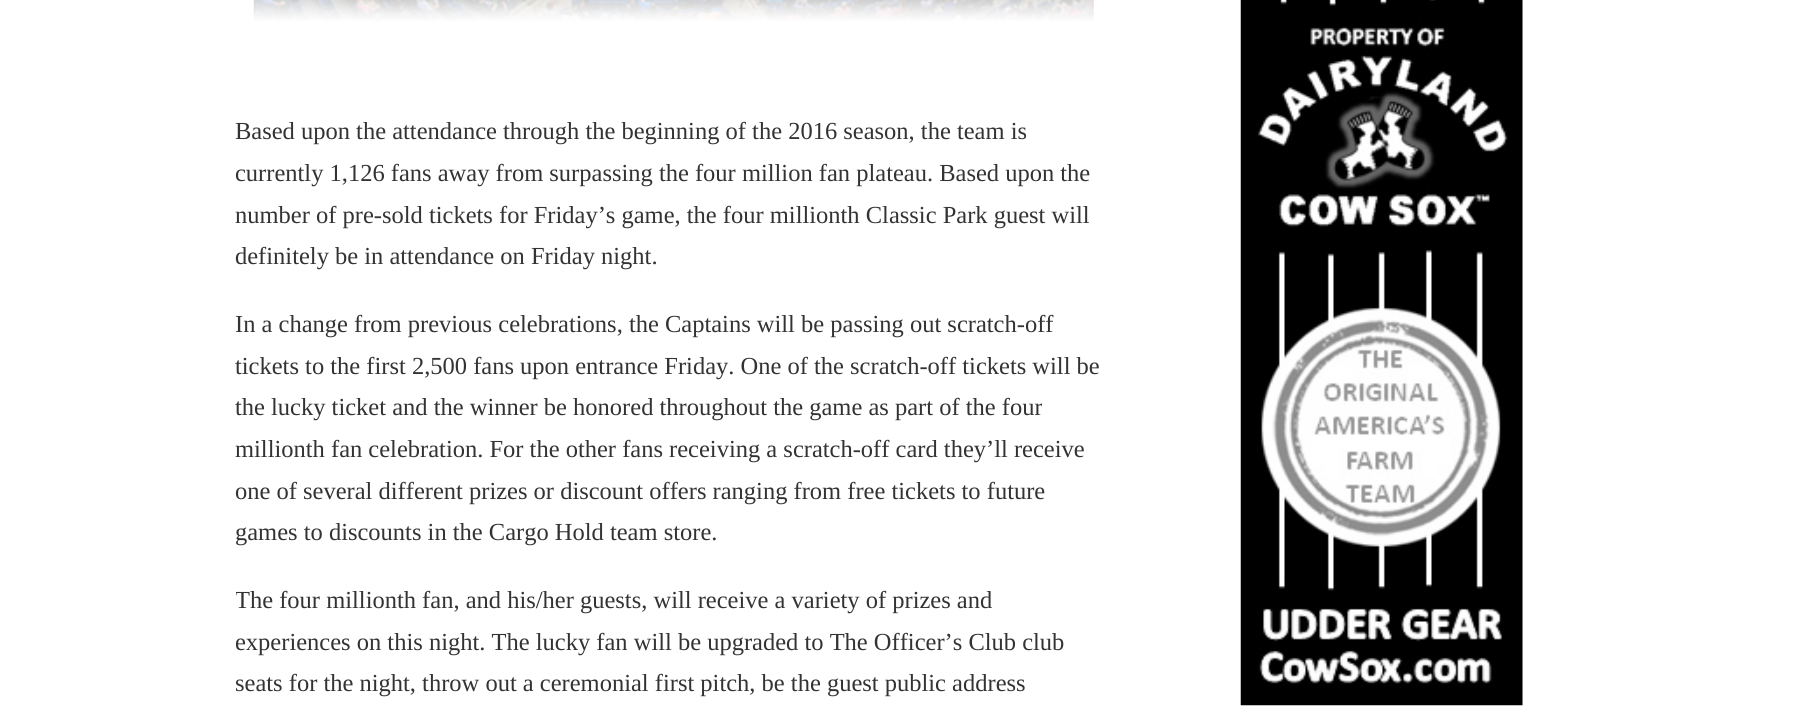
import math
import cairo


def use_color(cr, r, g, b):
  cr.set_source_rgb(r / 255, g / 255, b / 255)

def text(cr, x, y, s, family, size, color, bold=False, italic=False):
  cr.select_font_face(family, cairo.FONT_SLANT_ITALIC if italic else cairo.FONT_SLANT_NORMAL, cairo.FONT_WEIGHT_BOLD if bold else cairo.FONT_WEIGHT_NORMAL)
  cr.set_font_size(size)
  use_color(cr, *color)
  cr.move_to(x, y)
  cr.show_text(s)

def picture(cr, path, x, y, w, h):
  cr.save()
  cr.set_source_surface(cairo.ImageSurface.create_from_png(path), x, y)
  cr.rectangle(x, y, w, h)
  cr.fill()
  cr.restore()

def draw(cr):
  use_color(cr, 255, 255, 255)
  cr.paint()
  picture(cr, "img_01.png", 253, 0, 841, 21)
  picture(cr, "img_02.png", 1240, 0, 283, 706)
  text(cr, 235, 139, "Based upon the attendance through the beginning of the 2016 season, the team is", "Liberation Serif", 24.5, (51, 51, 51))
  text(cr, 235, 181, "currently 1,126 fans away from surpassing the four million fan plateau. Based upon the", "Liberation Serif", 24.5, (51, 51, 51))
  text(cr, 235, 223, "number of pre-sold tickets for Friday’s game, the four millionth Classic Park guest will", "Liberation Serif", 24.5, (51, 51, 51))
  text(cr, 235, 264, "definitely be in attendance on Friday night.", "Liberation Serif", 24.5, (51, 51, 51))
  text(cr, 235, 332, "In a change from previous celebrations, the Captains will be passing out scratch-off", "Liberation Serif", 24.5, (51, 51, 51))
  text(cr, 235, 374, "tickets to the first 2,500 fans upon entrance Friday. One of the scratch-off tickets will be", "Liberation Serif", 24.5, (51, 51, 51))
  text(cr, 235, 415, "the lucky ticket and the winner be honored throughout the game as part of the four", "Liberation Serif", 24.5, (51, 51, 51))
  text(cr, 235, 457, "millionth fan celebration. For the other fans receiving a scratch-off card they’ll receive", "Liberation Serif", 24.5, (51, 51, 51))
  text(cr, 235, 499, "one of several different prizes or discount offers ranging from free tickets to future", "Liberation Serif", 24.5, (51, 51, 51))
  text(cr, 235, 540, "games to discounts in the Cargo Hold team store.", "Liberation Serif", 24.5, (51, 51, 51))
  cr.save()
  cr.rectangle(236, 0, 875, 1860)
  cr.clip()
  text(cr, 235, 608, "The four millionth fan, and his/her guests, will receive a variety of prizes and", "Liberation Serif", 24.5, (51, 51, 51))
  cr.restore()
  text(cr, 235, 650, "experiences on this night. The lucky fan will be upgraded to The Officer’s Club club", "Liberation Serif", 24.5, (51, 51, 51))
  text(cr, 235, 691, "seats for the night, throw out a ceremonial first pitch, be the guest public address", "Liberation Serif", 24.5, (51, 51, 51))


surface = cairo.ImageSurface(cairo.FORMAT_RGB24, 1817, 712)
cr = cairo.Context(surface)
options = cairo.FontOptions()
options.set_hint_metrics(cairo.HINT_METRICS_OFF)
options.set_hint_style(cairo.HINT_STYLE_NONE)
cr.set_font_options(options)
cr.set_miter_limit(4)
draw(cr)
surface.write_to_png("out.png")
